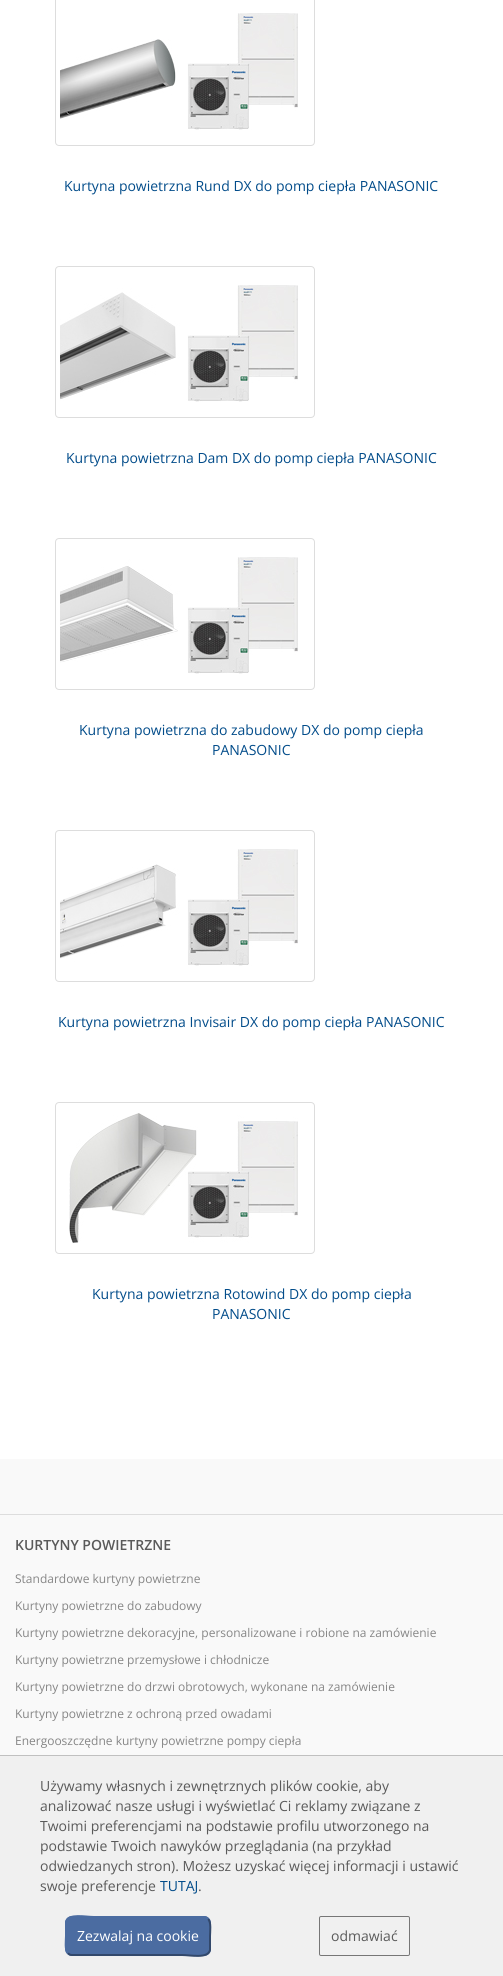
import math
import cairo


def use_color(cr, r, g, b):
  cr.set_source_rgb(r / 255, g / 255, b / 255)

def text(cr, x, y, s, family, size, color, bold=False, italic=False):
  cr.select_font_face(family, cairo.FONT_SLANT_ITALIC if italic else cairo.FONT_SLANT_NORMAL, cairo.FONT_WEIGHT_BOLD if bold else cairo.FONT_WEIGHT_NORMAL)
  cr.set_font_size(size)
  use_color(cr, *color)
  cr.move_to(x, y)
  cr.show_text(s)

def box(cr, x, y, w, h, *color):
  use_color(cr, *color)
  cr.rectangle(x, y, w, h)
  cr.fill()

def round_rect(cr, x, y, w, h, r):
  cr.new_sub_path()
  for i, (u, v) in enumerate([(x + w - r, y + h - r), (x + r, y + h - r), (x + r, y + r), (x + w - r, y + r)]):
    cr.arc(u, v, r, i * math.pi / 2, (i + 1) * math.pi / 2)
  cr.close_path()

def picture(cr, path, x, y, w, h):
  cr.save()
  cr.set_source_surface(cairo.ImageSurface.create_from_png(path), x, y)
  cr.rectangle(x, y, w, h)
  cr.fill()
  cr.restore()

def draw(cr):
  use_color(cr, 255, 255, 255)
  cr.paint()
  round_rect(cr, 55.5, -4.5, 259, 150, 3.5)
  use_color(cr, 221, 221, 221)
  cr.set_line_width(1)
  cr.stroke()
  picture(cr, "img_01.png", 60, 13, 238, 117)
  round_rect(cr, 55.5, 266.5, 259, 151, 3.5)
  cr.stroke()
  picture(cr, "img_02.png", 60, 285, 238, 117)
  round_rect(cr, 55.5, 538.5, 259, 151, 3.5)
  cr.stroke()
  picture(cr, "img_03.png", 60, 557, 238, 117)
  round_rect(cr, 55.5, 830.5, 259, 151, 3.5)
  cr.stroke()
  picture(cr, "img_04.png", 60, 849, 238, 117)
  round_rect(cr, 55.5, 1102.5, 259, 151, 3.5)
  cr.stroke()
  picture(cr, "img_05.png", 69, 1113, 229, 130)
  box(cr, 0, 1459, 503, 296, 249, 249, 249)
  box(cr, 0, 1514, 503, 1, 221, 221, 221)
  box(cr, 0, 1756, 503, 220, 240, 240, 240)
  box(cr, 0, 1755, 503, 1, 192, 192, 192)
  use_color(cr, 75, 108, 161)
  round_rect(cr, 65, 1916, 146, 40, 7)
  cr.fill()
  cr.new_path()
  cr.move_to(208, 1919)
  cr.curve_to(211.5, 1922, 210, 1932, 210, 1936)
  cr.line_to(210, 1950)
  cr.curve_to(208, 1959, 190.5, 1955, 182, 1955)
  cr.line_to(72, 1955)
  cr.curve_to(70.5, 1955, 69, 1954.5, 68, 1953)
  use_color(cr, 50, 72, 107)
  cr.set_line_width(2)
  cr.stroke()
  cr.new_path()
  cr.move_to(68, 1953)
  cr.curve_to(64.5, 1950, 66, 1940, 66, 1936)
  cr.line_to(66, 1922)
  cr.curve_to(68, 1913, 85.5, 1917, 94, 1917)
  cr.line_to(204, 1917)
  cr.curve_to(205.5, 1917, 207, 1917.5, 208, 1919)
  use_color(cr, 75, 108, 161)
  cr.stroke()
  round_rect(cr, 319.5, 1916.5, 90, 39, 1.5)
  use_color(cr, 118, 118, 118)
  cr.set_line_width(1)
  cr.stroke()
  text(cr, 64, 191, "Kurtyna powietrzna Rund DX do pomp ciepła PANASONIC", "Open Sans", 14, (2, 76, 138))
  text(cr, 66, 463, "Kurtyna powietrzna Dam DX do pomp ciepła PANASONIC", "Open Sans", 14, (2, 76, 138))
  text(cr, 79, 735, "Kurtyna powietrzna do zabudowy DX do pomp ciepła", "Open Sans", 14, (2, 76, 138))
  text(cr, 212, 755, "PANASONIC", "Open Sans", 14, (2, 76, 138))
  text(cr, 58, 1027, "Kurtyna powietrzna Invisair DX do pomp ciepła PANASONIC", "Open Sans", 14, (2, 76, 138))
  text(cr, 92, 1299, "Kurtyna powietrzna Rotowind DX do pomp ciepła", "Open Sans", 14, (2, 76, 138))
  text(cr, 212, 1319, "PANASONIC", "Open Sans", 14, (2, 76, 138))
  text(cr, 15, 1550, "KURTYNY POWIETRZNE", "Open Sans SemiBold", 14, (90, 90, 90))
  text(cr, 15, 1583, "Standardowe kurtyny powietrzne", "Open Sans", 12, (134, 134, 134))
  text(cr, 15, 1610, "Kurtyny powietrzne do zabudowy", "Open Sans", 12, (134, 134, 134))
  text(cr, 15, 1637, "Kurtyny powietrzne dekoracyjne, personalizowane i robione na zamówienie", "Open Sans", 12, (134, 134, 134))
  text(cr, 15, 1664, "Kurtyny powietrzne przemysłowe i chłodnicze", "Open Sans", 12, (134, 134, 134))
  text(cr, 15, 1691, "Kurtyny powietrzne do drzwi obrotowych, wykonane na zamówienie", "Open Sans", 12, (134, 134, 134))
  text(cr, 15, 1718, "Kurtyny powietrzne z ochroną przed owadami", "Open Sans", 12, (134, 134, 134))
  text(cr, 15, 1745, "Energooszczędne kurtyny powietrzne pompy ciepła", "Open Sans", 12, (134, 134, 134))
  text(cr, 40, 1791, "Używamy własnych i zewnętrznych plików cookie, aby", "Open Sans", 14, (90, 90, 90))
  text(cr, 40, 1811, "analizować nasze usługi i wyświetlać Ci reklamy związane z", "Open Sans", 14, (90, 90, 90))
  text(cr, 40, 1831, "Twoimi preferencjami na podstawie profilu utworzonego na", "Open Sans", 14, (90, 90, 90))
  text(cr, 40, 1851, "podstawie Twoich nawyków przeglądania (na przykład", "Open Sans", 14, (90, 90, 90))
  text(cr, 40, 1871, "odwiedzanych stron). Możesz uzyskać więcej informacji i ustawić", "Open Sans", 14, (90, 90, 90))
  text(cr, 40, 1891, "swoje preferencje", "Open Sans", 14, (90, 90, 90))
  text(cr, 160, 1891, "TUTAJ", "Open Sans", 14, (2, 76, 138))
  text(cr, 198, 1891, ".", "Open Sans", 14, (90, 90, 90))
  text(cr, 77, 1941, "Zezwalaj na cookie", "Open Sans", 14, (255, 255, 255))
  text(cr, 331, 1941, "odmawiać", "Open Sans", 14, (90, 90, 90))


surface = cairo.ImageSurface(cairo.FORMAT_RGB24, 503, 1976)
cr = cairo.Context(surface)
options = cairo.FontOptions()
options.set_hint_metrics(cairo.HINT_METRICS_OFF)
options.set_hint_style(cairo.HINT_STYLE_NONE)
cr.set_font_options(options)
cr.set_miter_limit(4)
draw(cr)
surface.write_to_png("out.png")
